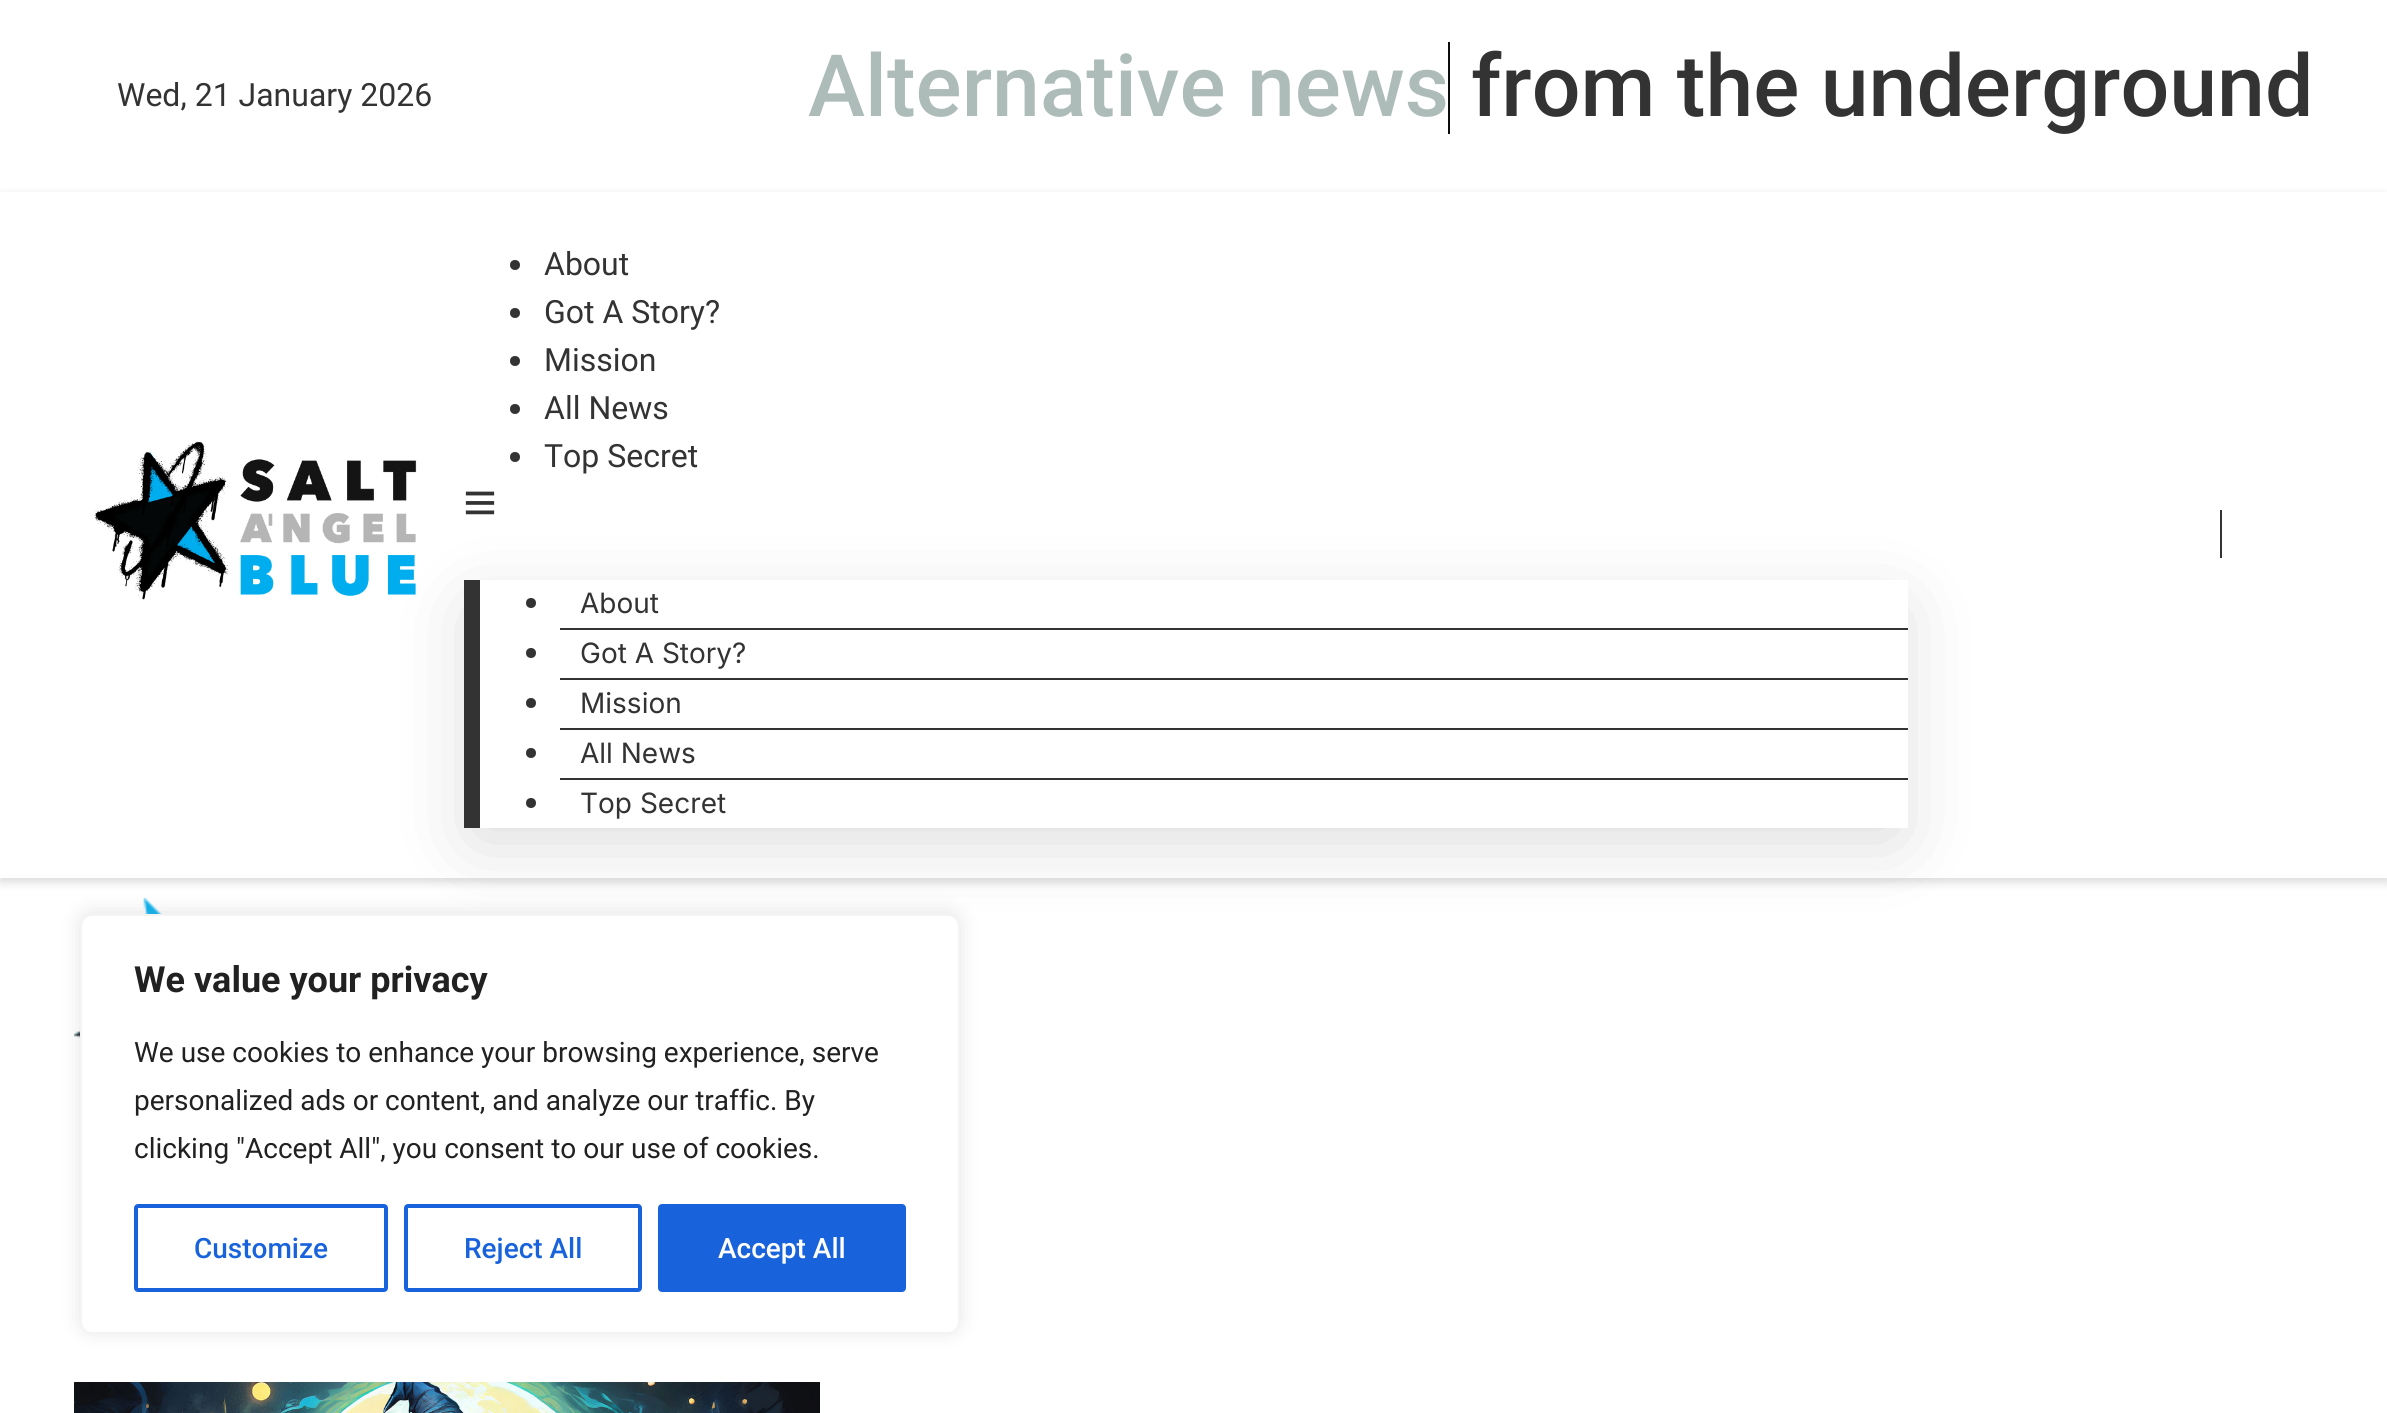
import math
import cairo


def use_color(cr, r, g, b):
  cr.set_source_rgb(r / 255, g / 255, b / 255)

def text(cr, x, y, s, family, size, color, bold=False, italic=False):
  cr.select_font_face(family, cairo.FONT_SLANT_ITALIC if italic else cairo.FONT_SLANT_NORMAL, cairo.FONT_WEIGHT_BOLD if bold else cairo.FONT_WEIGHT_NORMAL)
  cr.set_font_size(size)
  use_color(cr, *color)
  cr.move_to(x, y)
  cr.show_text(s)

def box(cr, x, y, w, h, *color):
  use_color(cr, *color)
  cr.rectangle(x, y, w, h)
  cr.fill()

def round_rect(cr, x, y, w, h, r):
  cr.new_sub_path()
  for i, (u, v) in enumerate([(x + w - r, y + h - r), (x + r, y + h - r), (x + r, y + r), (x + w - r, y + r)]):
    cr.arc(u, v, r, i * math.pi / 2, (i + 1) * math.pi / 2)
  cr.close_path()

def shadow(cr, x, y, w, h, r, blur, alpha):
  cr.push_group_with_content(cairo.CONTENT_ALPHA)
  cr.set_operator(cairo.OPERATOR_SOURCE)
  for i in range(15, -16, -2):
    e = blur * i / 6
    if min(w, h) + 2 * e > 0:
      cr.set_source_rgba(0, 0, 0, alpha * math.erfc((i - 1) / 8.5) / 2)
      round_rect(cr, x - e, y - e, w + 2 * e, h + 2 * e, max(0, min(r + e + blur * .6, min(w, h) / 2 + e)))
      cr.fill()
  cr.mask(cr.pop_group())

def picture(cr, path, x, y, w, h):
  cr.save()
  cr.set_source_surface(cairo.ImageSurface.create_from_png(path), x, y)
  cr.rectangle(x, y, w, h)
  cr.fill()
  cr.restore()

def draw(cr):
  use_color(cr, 255, 255, 255)
  cr.paint()
  box(cr, 1448, 42, 2, 92, 13, 13, 13)
  cr.save()
  cr.set_fill_rule(cairo.FILL_RULE_EVEN_ODD)
  cr.new_path()
  cr.move_to(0, 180)
  cr.line_to(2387, 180)
  cr.line_to(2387, 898)
  cr.line_to(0, 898)
  cr.close_path()
  cr.move_to(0, 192)
  cr.line_to(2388, 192)
  cr.line_to(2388, 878)
  cr.line_to(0, 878)
  cr.close_path()
  cr.clip()
  use_color(cr, 0, 0, 0)
  shadow(cr, 0, 196, 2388, 686, 0, 5, 0.15)
  cr.restore()
  picture(cr, "img_01.png", 94, 440, 323, 160)
  use_color(cr, 51, 51, 51)
  cr.arc(515, 265, 5, 0, 2 * math.pi)
  cr.fill()
  cr.arc(515, 313, 5, 0, 2 * math.pi)
  cr.fill()
  cr.arc(515, 361, 5, 0, 2 * math.pi)
  cr.fill()
  cr.arc(515, 409, 5, 0, 2 * math.pi)
  cr.fill()
  cr.arc(515, 457, 5, 0, 2 * math.pi)
  cr.fill()
  cr.save()
  cr.set_fill_rule(cairo.FILL_RULE_EVEN_ODD)
  cr.new_path()
  cr.move_to(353, 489)
  cr.line_to(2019, 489)
  cr.line_to(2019, 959)
  cr.line_to(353, 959)
  cr.close_path()
  cr.move_to(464, 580)
  cr.line_to(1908, 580)
  cr.line_to(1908, 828)
  cr.line_to(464, 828)
  cr.close_path()
  cr.clip()
  use_color(cr, 0, 0, 0)
  shadow(cr, 474, 610, 1424, 228, 0, 40, 0.15)
  cr.restore()
  picture(cr, "img_02.png", 465, 491, 30, 24)
  box(cr, 464, 580, 16, 248, 51, 51, 51)
  box(cr, 560, 628, 1348, 2, 51, 51, 51)
  cr.arc(531, 603, 5, 0, 2 * math.pi)
  cr.fill()
  box(cr, 560, 678, 1348, 2, 51, 51, 51)
  cr.arc(531, 653, 5, 0, 2 * math.pi)
  cr.fill()
  box(cr, 560, 728, 1348, 2, 51, 51, 51)
  cr.arc(531, 703, 5, 0, 2 * math.pi)
  cr.fill()
  box(cr, 560, 778, 1348, 2, 51, 51, 51)
  cr.arc(531, 753, 5, 0, 2 * math.pi)
  cr.fill()
  cr.arc(531, 803, 5, 0, 2 * math.pi)
  cr.fill()
  box(cr, 2220, 510, 2, 48, 51, 51, 51)
  picture(cr, "img_03.png", 74, 898, 89, 141)
  picture(cr, "img_04.png", 74, 1382, 746, 31)
  use_color(cr, 172, 171, 171)
  shadow(cr, 80, 912, 880, 420, 12, 10, 0.3)
  use_color(cr, 255, 255, 255)
  round_rect(cr, 81, 915, 878, 418, 11)
  cr.fill_preserve()
  use_color(cr, 244, 244, 244)
  cr.stroke()
  round_rect(cr, 136, 1206, 250, 84, 2)
  use_color(cr, 24, 99, 220)
  cr.set_line_width(4)
  cr.stroke()
  round_rect(cr, 406, 1206, 234, 84, 2)
  cr.stroke()
  round_rect(cr, 660, 1206, 244, 84, 2)
  cr.fill_preserve()
  cr.stroke()
  text(cr, 117, 106, "Wed, 21 January 2026", "Roboto", 32, (51, 51, 51))
  text(cr, 808, 116, "Alternative news", "Roboto Medium", 86, (174, 188, 185))
  text(cr, 1471, 116, "from the underground", "Roboto Medium", 86, (51, 51, 51))
  text(cr, 544, 275, "About", "Roboto", 32, (51, 51, 51))
  text(cr, 544, 323, "Got A Story?", "Roboto", 32, (51, 51, 51))
  text(cr, 544, 371, "Mission", "Roboto", 32, (51, 51, 51))
  text(cr, 544, 419, "All News", "Roboto", 32, (51, 51, 51))
  text(cr, 544, 467, "Top Secret", "Roboto", 32, (51, 51, 51))
  text(cr, 580, 613, "About", "Inter", 28, (51, 51, 51))
  text(cr, 580, 663, "Got A Story?", "Inter", 28, (51, 51, 51))
  text(cr, 580, 713, "Mission", "Inter", 28, (51, 51, 51))
  text(cr, 580, 763, "All News", "Inter", 28, (51, 51, 51))
  text(cr, 580, 813, "Top Secret", "Inter", 28, (51, 51, 51))
  text(cr, 134, 992, "We value your privacy", "Roboto", 36, (33, 33, 33), bold=True)
  text(cr, 134, 1062, "We use cookies to enhance your browsing experience, serve", "Roboto", 28, (33, 33, 33))
  text(cr, 134, 1110, "personalized ads or content, and analyze our traffic. By", "Roboto", 28, (33, 33, 33))
  text(cr, 134, 1158, "clicking \"Accept All\", you consent to our use of cookies.", "Roboto", 28, (33, 33, 33))
  text(cr, 194, 1258, "Customize", "Roboto Medium", 28, (24, 99, 220))
  text(cr, 464, 1258, "Reject All", "Roboto Medium", 28, (24, 99, 220))
  text(cr, 718, 1258, "Accept All", "Roboto Medium", 28, (255, 255, 255))


surface = cairo.ImageSurface(cairo.FORMAT_RGB24, 2387, 1413)
cr = cairo.Context(surface)
options = cairo.FontOptions()
options.set_hint_metrics(cairo.HINT_METRICS_OFF)
options.set_hint_style(cairo.HINT_STYLE_NONE)
cr.set_font_options(options)
cr.set_miter_limit(4)
draw(cr)
surface.write_to_png("out.png")
